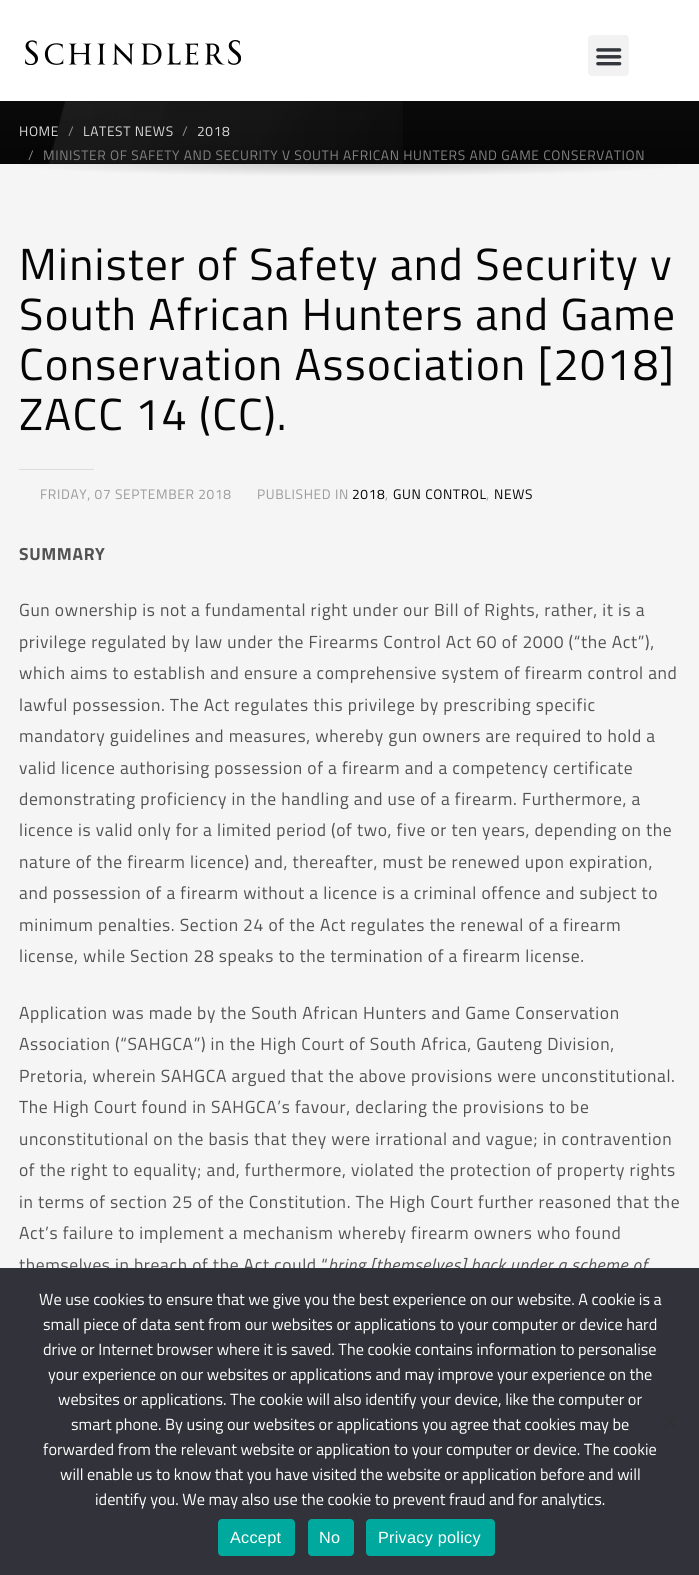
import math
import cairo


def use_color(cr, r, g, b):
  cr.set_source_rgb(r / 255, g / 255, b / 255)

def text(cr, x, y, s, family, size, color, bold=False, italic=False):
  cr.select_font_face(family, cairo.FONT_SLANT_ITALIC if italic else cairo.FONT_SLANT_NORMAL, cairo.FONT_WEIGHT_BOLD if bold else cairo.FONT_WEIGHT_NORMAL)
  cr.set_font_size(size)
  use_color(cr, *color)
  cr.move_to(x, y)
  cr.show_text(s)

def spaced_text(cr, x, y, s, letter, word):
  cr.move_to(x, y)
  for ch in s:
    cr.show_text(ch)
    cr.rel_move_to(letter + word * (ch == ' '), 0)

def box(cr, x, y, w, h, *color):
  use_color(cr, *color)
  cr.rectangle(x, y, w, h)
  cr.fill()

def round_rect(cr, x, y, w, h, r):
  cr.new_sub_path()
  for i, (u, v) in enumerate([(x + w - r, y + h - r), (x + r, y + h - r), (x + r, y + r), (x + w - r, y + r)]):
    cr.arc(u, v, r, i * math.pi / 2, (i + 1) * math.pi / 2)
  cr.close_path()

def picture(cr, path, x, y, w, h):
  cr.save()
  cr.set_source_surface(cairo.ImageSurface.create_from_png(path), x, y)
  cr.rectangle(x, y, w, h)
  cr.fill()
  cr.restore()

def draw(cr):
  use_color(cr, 245, 245, 245)
  cr.paint()
  box(cr, 0, 0, 699, 101, 255, 255, 255)
  picture(cr, "img_01.png", 25, 40, 216, 25)
  use_color(cr, 242, 242, 242)
  round_rect(cr, 588, 35, 41, 41, 4)
  cr.fill()
  picture(cr, "img_02.png", 596, 48, 26, 18)
  gradient = cairo.LinearGradient(350, 101, 350, 164)
  gradient.add_color_stop_rgba(0, 0.039, 0.039, 0.039, 1)
  gradient.add_color_stop_rgba(1, 0.02, 0.02, 0.02, 1)
  cr.set_source(gradient)
  cr.rectangle(0, 101, 699, 63)
  cr.fill()
  picture(cr, "img_03.png", 49, 101, 354, 63)
  gradient = cairo.RadialGradient(0, 0, 0, 0, 0, 1)
  gradient.set_matrix(cairo.Matrix(1 / 495, 0, 0, 1 / 18, -1 * 350 / 495, -1 * 164 / 18))
  gradient.add_color_stop_rgba(0, 0.788, 0.788, 0.788, 1)
  gradient.add_color_stop_rgba(0.7, 0.961, 0.961, 0.961, 1)
  cr.set_source(gradient)
  cr.rectangle(22, 164, 656, 12)
  cr.fill()
  box(cr, 19, 469, 75, 1, 221, 221, 221)
  cr.select_font_face("Titillium Web")
  cr.set_font_size(13.75)
  use_color(cr, 218, 218, 218)
  spaced_text(cr, 19, 136, "HOME", 0.62, 0)
  use_color(cr, 141, 141, 141)
  spaced_text(cr, 68, 136, "/", 0.62, 0)
  use_color(cr, 218, 218, 218)
  spaced_text(cr, 83, 136, "LATEST NEWS", 0.62, 0)
  use_color(cr, 141, 141, 141)
  spaced_text(cr, 182, 136, "/", 0.62, 0)
  use_color(cr, 218, 218, 218)
  spaced_text(cr, 197, 136, "2018", 0.62, 0)
  use_color(cr, 130, 130, 130)
  spaced_text(cr, 28, 160, "/", 0.62, 0)
  spaced_text(cr, 43, 160, "MINISTER OF SAFETY AND SECURITY V SOUTH AFRICAN HUNTERS AND GAME CONSERVATION", 0.62, 0)
  cr.set_font_size(45)
  use_color(cr, 5, 5, 5)
  spaced_text(cr, 19, 280, "Minister of Safety and Security v", 1.25, 0)
  spaced_text(cr, 19, 330, "South African Hunters and Game", 1.25, 0)
  spaced_text(cr, 19, 380, "Conservation Association [2018]", 1.25, 0)
  spaced_text(cr, 19, 430, "ZACC 14 (CC).", 1.25, 0)
  cr.set_font_size(13.75)
  use_color(cr, 154, 154, 154)
  spaced_text(cr, 40, 499, "FRIDAY, 07 SEPTEMBER 2018", 0.62, 0)
  spaced_text(cr, 257, 499, "PUBLISHED IN", 0.62, 0)
  use_color(cr, 5, 5, 5)
  spaced_text(cr, 352, 499, "2018", 0.62, 0)
  use_color(cr, 154, 154, 154)
  spaced_text(cr, 385, 499, ",", 0.62, 0)
  use_color(cr, 5, 5, 5)
  spaced_text(cr, 393, 499, "GUN CONTROL", 0.62, 0)
  use_color(cr, 154, 154, 154)
  spaced_text(cr, 486, 499, ",", 0.62, 0)
  use_color(cr, 5, 5, 5)
  spaced_text(cr, 494, 499, "NEWS", 0.62, 0)
  cr.select_font_face("Titillium Web", cairo.FONT_SLANT_NORMAL, cairo.FONT_WEIGHT_BOLD)
  cr.set_font_size(17.5)
  use_color(cr, 83, 83, 83)
  spaced_text(cr, 19, 560, "SUMMARY", 0.62, 0)
  cr.select_font_face("Titillium Web")
  spaced_text(cr, 19, 616, "Gun ownership is not a fundamental right under our Bill of Rights, rather, it is a", 0.62, 0)
  spaced_text(cr, 19, 648, "privilege regulated by law under the Firearms Control Act 60 of 2000 (“the Act”),", 0.62, 0)
  spaced_text(cr, 19, 679, "which aims to establish and ensure a comprehensive system of firearm control and", 0.62, 0)
  spaced_text(cr, 19, 711, "lawful possession. The Act regulates this privilege by prescribing specific", 0.62, 0)
  spaced_text(cr, 19, 742, "mandatory guidelines and measures, whereby gun owners are required to hold a", 0.62, 0)
  spaced_text(cr, 19, 774, "valid licence authorising possession of a firearm and a competency certificate", 0.62, 0)
  spaced_text(cr, 19, 805, "demonstrating proficiency in the handling and use of a firearm. Furthermore, a", 0.62, 0)
  spaced_text(cr, 19, 836, "licence is valid only for a limited period (of two, five or ten years, depending on the", 0.62, 0)
  spaced_text(cr, 19, 868, "nature of the firearm licence) and, thereafter, must be renewed upon expiration,", 0.62, 0)
  spaced_text(cr, 19, 899, "and possession of a firearm without a licence is a criminal offence and subject to", 0.62, 0)
  spaced_text(cr, 19, 931, "minimum penalties. Section 24 of the Act regulates the renewal of a firearm", 0.62, 0)
  spaced_text(cr, 19, 962, "license, while Section 28 speaks to the termination of a firearm license.", 0.62, 0)
  spaced_text(cr, 19, 1019, "Application was made by the South African Hunters and Game Conservation", 0.62, 0)
  spaced_text(cr, 19, 1050, "Association (“SAHGCA”) in the High Court of South Africa, Gauteng Division,", 0.62, 0)
  spaced_text(cr, 19, 1082, "Pretoria, wherein SAHGCA argued that the above provisions were unconstitutional.", 0.62, 0)
  spaced_text(cr, 19, 1113, "The High Court found in SAHGCA’s favour, declaring the provisions to be", 0.62, 0)
  spaced_text(cr, 19, 1145, "unconstitutional on the basis that they were irrational and vague; in contravention", 0.62, 0)
  spaced_text(cr, 19, 1176, "of the right to equality; and, furthermore, violated the protection of property rights", 0.62, 0)
  spaced_text(cr, 19, 1208, "in terms of section 25 of the Constitution. The High Court further reasoned that the", 0.62, 0)
  spaced_text(cr, 19, 1239, "Act’s failure to implement a mechanism whereby firearm owners who found", 0.62, 0)
  spaced_text(cr, 19, 1271, "themselves in breach of the Act could “", 0.62, 0)
  cr.select_font_face("Titillium Web", cairo.FONT_SLANT_ITALIC)
  spaced_text(cr, 328, 1271, "bring [themselves] back under a scheme of", 0.62, 0)
  box(cr, 0, 1268, 699, 307, 50, 50, 58)
  text(cr, 39, 1305, "We use cookies to ensure that we give you the best experience on our website. A cookie is a", "Titillium Web", 16.25, (255, 255, 255))
  text(cr, 43, 1330, "small piece of data sent from our websites or applications to your computer or device hard", "Titillium Web", 16.25, (255, 255, 255))
  text(cr, 43, 1355, "drive or Internet browser where it is saved. The cookie contains information to personalise", "Titillium Web", 16.25, (255, 255, 255))
  text(cr, 48, 1380, "your experience on our websites or applications and may improve your experience on the", "Titillium Web", 16.25, (255, 255, 255))
  text(cr, 58, 1405, "websites or applications. The cookie will also identify your device, like the computer or", "Titillium Web", 16.25, (255, 255, 255))
  text(cr, 71, 1430, "smart phone. By using our websites or applications you agree that cookies may be", "Titillium Web", 16.25, (255, 255, 255))
  text(cr, 43, 1455, "forwarded from the relevant website or application to your computer or device. The cookie", "Titillium Web", 16.25, (255, 255, 255))
  text(cr, 60, 1480, "will enable us to know that you have visited the website or application before and will", "Titillium Web", 16.25, (255, 255, 255))
  text(cr, 95, 1505, "identify you. We may also use the cookie to prevent fraud and for analytics.", "Titillium Web", 16.25, (255, 255, 255))
  use_color(cr, 49, 49, 53)
  cr.new_path()
  cr.move_to(675.5, 1414.5)
  cr.line_to(677.5, 1416)
  cr.line_to(664.5, 1429.5)
  cr.line_to(662.5, 1427.5)
  cr.close_path()
  cr.fill()
  cr.new_path()
  cr.move_to(662.5, 1416)
  cr.line_to(664.5, 1414.5)
  cr.line_to(677.5, 1427.5)
  cr.line_to(675.5, 1429.5)
  cr.close_path()
  cr.fill()
  use_color(cr, 0, 169, 157)
  round_rect(cr, 218, 1519, 77, 37, 4)
  cr.fill()
  cr.select_font_face("Liberation Sans")
  use_color(cr, 255, 255, 255)
  spaced_text(cr, 230, 1543, "Accept", 0.25, 0)
  use_color(cr, 0, 169, 157)
  round_rect(cr, 308, 1519, 46, 37, 4)
  cr.fill()
  use_color(cr, 255, 255, 255)
  spaced_text(cr, 319, 1543, "No", 0.25, 0)
  use_color(cr, 0, 169, 157)
  round_rect(cr, 366, 1519, 129, 37, 4)
  cr.fill()
  use_color(cr, 255, 255, 255)
  spaced_text(cr, 378, 1543, "Privacy policy", 0.25, 0)


surface = cairo.ImageSurface(cairo.FORMAT_RGB24, 699, 1575)
cr = cairo.Context(surface)
options = cairo.FontOptions()
options.set_hint_metrics(cairo.HINT_METRICS_OFF)
options.set_hint_style(cairo.HINT_STYLE_NONE)
cr.set_font_options(options)
cr.set_miter_limit(4)
draw(cr)
surface.write_to_png("out.png")
